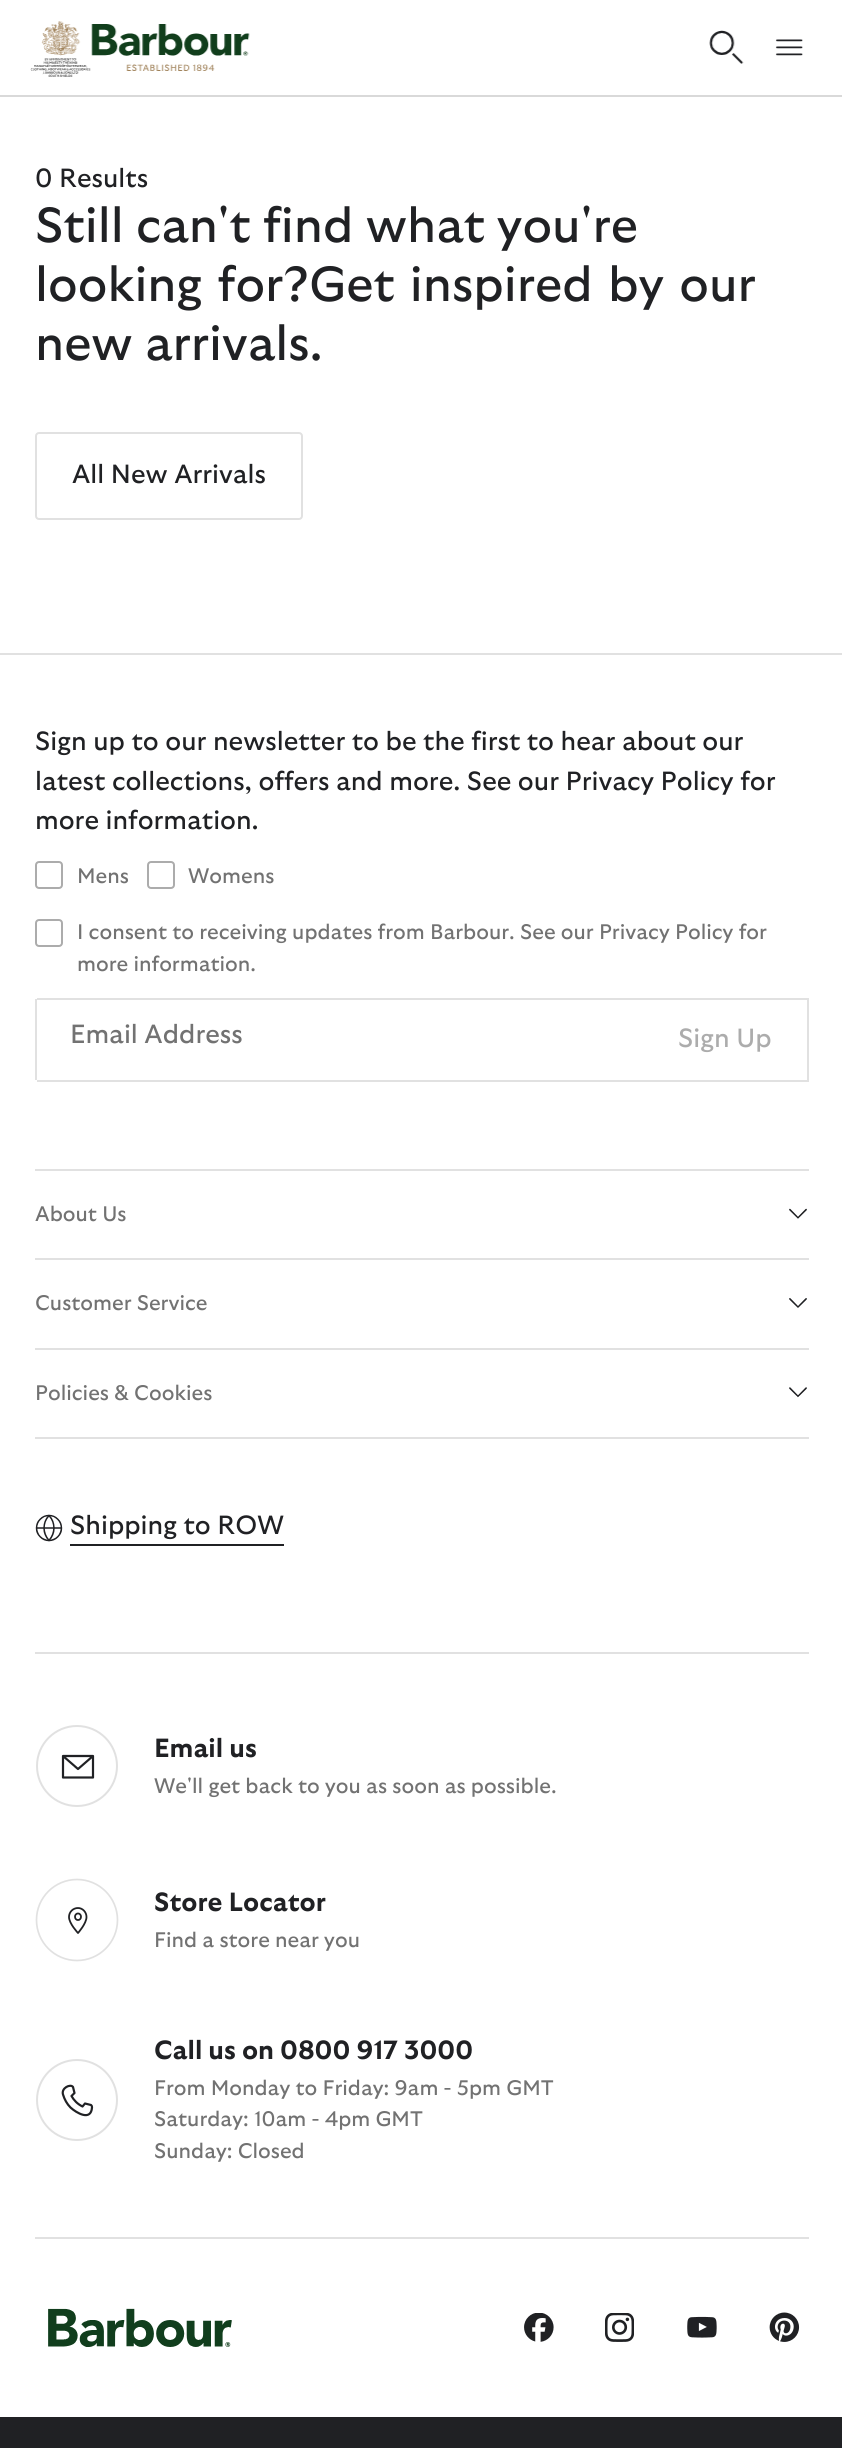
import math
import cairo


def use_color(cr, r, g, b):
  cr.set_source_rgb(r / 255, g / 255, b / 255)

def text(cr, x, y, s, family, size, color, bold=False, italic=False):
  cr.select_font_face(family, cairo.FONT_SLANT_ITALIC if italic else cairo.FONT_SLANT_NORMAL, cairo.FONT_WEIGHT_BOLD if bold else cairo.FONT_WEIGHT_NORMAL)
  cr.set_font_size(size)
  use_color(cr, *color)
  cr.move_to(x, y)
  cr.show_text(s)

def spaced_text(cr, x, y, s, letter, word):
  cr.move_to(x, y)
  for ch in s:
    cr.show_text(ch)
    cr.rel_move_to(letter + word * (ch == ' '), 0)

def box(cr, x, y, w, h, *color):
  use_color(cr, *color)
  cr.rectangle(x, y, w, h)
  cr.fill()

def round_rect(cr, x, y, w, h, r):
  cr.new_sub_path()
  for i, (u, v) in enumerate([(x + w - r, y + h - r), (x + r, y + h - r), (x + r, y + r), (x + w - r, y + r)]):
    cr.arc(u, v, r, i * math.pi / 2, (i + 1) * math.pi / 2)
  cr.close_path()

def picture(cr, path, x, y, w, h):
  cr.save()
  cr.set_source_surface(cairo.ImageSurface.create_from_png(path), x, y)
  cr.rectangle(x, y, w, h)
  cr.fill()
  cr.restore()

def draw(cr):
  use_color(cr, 255, 255, 255)
  cr.paint()
  picture(cr, "img_01.png", 30, 21, 220, 56)
  picture(cr, "img_02.png", 709, 30, 35, 34)
  picture(cr, "img_03.png", 775, 39, 28, 17)
  box(cr, 0, 95, 842, 2, 217, 217, 217)
  round_rect(cr, 36, 433, 266, 86, 3)
  use_color(cr, 225, 225, 225)
  cr.stroke()
  box(cr, 0, 653, 842, 2, 225, 225, 225)
  round_rect(cr, 36, 862, 26, 26, 3)
  use_color(cr, 172, 172, 172)
  cr.stroke()
  round_rect(cr, 148, 862, 26, 26, 3)
  cr.stroke()
  round_rect(cr, 36, 920, 26, 26, 3)
  cr.stroke()
  box(cr, 37, 998, 772, 2, 225, 225, 225)
  box(cr, 37, 1080, 609, 2, 225, 225, 225)
  box(cr, 35, 999, 2, 81, 225, 225, 225)
  box(cr, 807, 998, 2, 84, 225, 225, 225)
  box(cr, 644, 1080, 165, 2, 225, 225, 225)
  box(cr, 35, 1169, 774, 2, 225, 225, 225)
  picture(cr, "img_04.png", 789, 1208, 18, 11)
  box(cr, 35, 1258, 774, 2, 225, 225, 225)
  picture(cr, "img_05.png", 789, 1298, 18, 10)
  box(cr, 35, 1437, 774, 2, 225, 225, 225)
  box(cr, 35, 1348, 774, 2, 225, 225, 225)
  picture(cr, "img_06.png", 789, 1387, 18, 11)
  picture(cr, "img_07.png", 35, 1514, 28, 28)
  box(cr, 70, 1544, 214, 2, 32, 33, 36)
  box(cr, 35, 1652, 774, 2, 225, 225, 225)
  box(cr, 35, 2237, 774, 2, 225, 225, 225)
  cr.arc(77, 1766, 40, 0, 2 * math.pi)
  cr.stroke()
  cr.new_path()
  cr.move_to(63, 1756)
  cr.line_to(93, 1756)
  cr.line_to(93, 1777.5)
  cr.line_to(63, 1777.5)
  cr.close_path()
  cr.move_to(63, 1756)
  cr.line_to(78, 1769)
  cr.line_to(93, 1756)
  use_color(cr, 32, 33, 36)
  cr.set_line_width(2.2)
  cr.set_line_cap(cairo.LINE_CAP_ROUND)
  cr.set_line_join(cairo.LINE_JOIN_ROUND)
  cr.stroke()
  cr.arc(77, 1920, 40.5, 0, 2 * math.pi)
  use_color(cr, 225, 225, 225)
  cr.set_line_width(1.7)
  cr.set_line_cap(cairo.LINE_CAP_BUTT)
  cr.set_line_join(cairo.LINE_JOIN_MITER)
  cr.stroke()
  cr.new_path()
  cr.move_to(78, 1908)
  cr.curve_to(73, 1908, 69, 1912, 69, 1917)
  cr.curve_to(69, 1923.5, 78, 1933, 78, 1933)
  cr.curve_to(78, 1933, 86.5, 1923.5, 86.5, 1917)
  cr.curve_to(86.5, 1912, 82.5, 1908, 78, 1908)
  cr.close_path()
  cr.move_to(78, 1920)
  cr.curve_to(74, 1920, 74, 1913.5, 78, 1913.5)
  cr.curve_to(82, 1913.5, 82, 1920, 78, 1920)
  cr.close_path()
  use_color(cr, 32, 33, 36)
  cr.set_line_width(1.8)
  cr.set_line_join(cairo.LINE_JOIN_ROUND)
  cr.stroke()
  cr.arc(77, 2100, 40, 0, 2 * math.pi)
  use_color(cr, 225, 225, 225)
  cr.set_line_width(2)
  cr.set_line_join(cairo.LINE_JOIN_MITER)
  cr.stroke()
  cr.new_path()
  cr.move_to(63, 2094.5)
  cr.curve_to(64.5, 2099.5, 67, 2104, 70.5, 2107.5)
  cr.curve_to(76.5, 2113, 91, 2121.5, 92, 2107.5)
  cr.curve_to(92, 2106.5, 92, 2106, 91, 2105)
  cr.line_to(85, 2103.5)
  cr.line_to(82.5, 2106.5)
  cr.curve_to(77.5, 2104, 74, 2100.5, 71.5, 2096)
  cr.line_to(74.5, 2093)
  cr.line_to(73, 2087)
  cr.curve_to(70.5, 2083.5, 61, 2088, 63, 2094.5)
  cr.close_path()
  use_color(cr, 32, 33, 36)
  cr.set_line_width(2.2)
  cr.set_line_cap(cairo.LINE_CAP_ROUND)
  cr.set_line_join(cairo.LINE_JOIN_ROUND)
  cr.stroke()
  picture(cr, "img_08.png", 48, 2308, 184, 39)
  picture(cr, "img_09.png", 524, 2313, 30, 29)
  picture(cr, "img_10.png", 605, 2313, 29, 29)
  picture(cr, "img_11.png", 687, 2316, 30, 22)
  picture(cr, "img_12.png", 769, 2312, 31, 30)
  box(cr, 0, 2417, 842, 31, 32, 33, 36)
  text(cr, 35, 187, "0 Results", "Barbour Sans", 26.25, (32, 33, 36))
  text(cr, 35, 242, "Still can't find what you're", "Barbour Sans", 49, (32, 33, 36))
  spaced_text(cr, 35, 301, "looking for?Get inspired by our", 0, 3)
  text(cr, 35, 360, "new arrivals.", "Barbour Sans", 49, (32, 33, 36))
  text(cr, 72, 483, "All New Arrivals", "Barbour Sans", 26.25, (32, 33, 36))
  text(cr, 35, 750, "Sign up to our newsletter to be the first to hear about our", "Barbour Sans", 26.25, (32, 33, 36))
  text(cr, 35, 790, "latest collections, offers and more. See our Privacy Policy for", "Barbour Sans", 26.25, (32, 33, 36))
  text(cr, 35, 829, "more information.", "Barbour Sans", 26.25, (32, 33, 36))
  text(cr, 77, 883, "Mens", "Barbour Sans", 21, (114, 114, 114))
  text(cr, 188, 883, "Womens", "Barbour Sans", 21, (114, 114, 114))
  text(cr, 77, 939, "I consent to receiving updates from Barbour. See our Privacy Policy for", "Barbour Sans", 21, (114, 114, 114))
  text(cr, 77, 971, "more information.", "Barbour Sans", 21, (114, 114, 114))
  text(cr, 70, 1043, "Email Address", "Barbour Sans", 26.25, (114, 114, 114))
  text(cr, 678, 1047, "Sign Up", "Barbour Sans", 26.25, (172, 172, 172))
  text(cr, 35, 1221, "About Us", "Barbour Sans", 21, (114, 114, 114))
  text(cr, 35, 1310, "Customer Service", "Barbour Sans", 21, (114, 114, 114))
  text(cr, 35, 1400, "Policies & Cookies", "Barbour Sans", 21, (114, 114, 114))
  text(cr, 70, 1534, "Shipping to ROW", "Barbour Sans", 26.25, (32, 33, 36))
  text(cr, 154, 1757, "Email us", "Barbour Sans", 26.25, (32, 33, 36), bold=True)
  text(cr, 154, 1793, "We'll get back to you as soon as possible.", "Barbour Sans", 21, (114, 114, 114))
  text(cr, 154, 1911, "Store Locator", "Barbour Sans", 26.25, (32, 33, 36), bold=True)
  text(cr, 154, 1947, "Find a store near you", "Barbour Sans", 21, (114, 114, 114))
  text(cr, 154, 2059, "Call us on 0800 917 3000", "Barbour Sans", 26.25, (32, 33, 36), bold=True)
  text(cr, 154, 2095, "From Monday to Friday: 9am - 5pm GMT", "Barbour Sans", 21, (114, 114, 114))
  text(cr, 154, 2126, "Saturday: 10am - 4pm GMT", "Barbour Sans", 21, (114, 114, 114))
  text(cr, 154, 2158, "Sunday: Closed", "Barbour Sans", 21, (114, 114, 114))


surface = cairo.ImageSurface(cairo.FORMAT_RGB24, 842, 2448)
cr = cairo.Context(surface)
options = cairo.FontOptions()
options.set_hint_metrics(cairo.HINT_METRICS_OFF)
options.set_hint_style(cairo.HINT_STYLE_NONE)
cr.set_font_options(options)
cr.set_miter_limit(4)
draw(cr)
surface.write_to_png("out.png")
